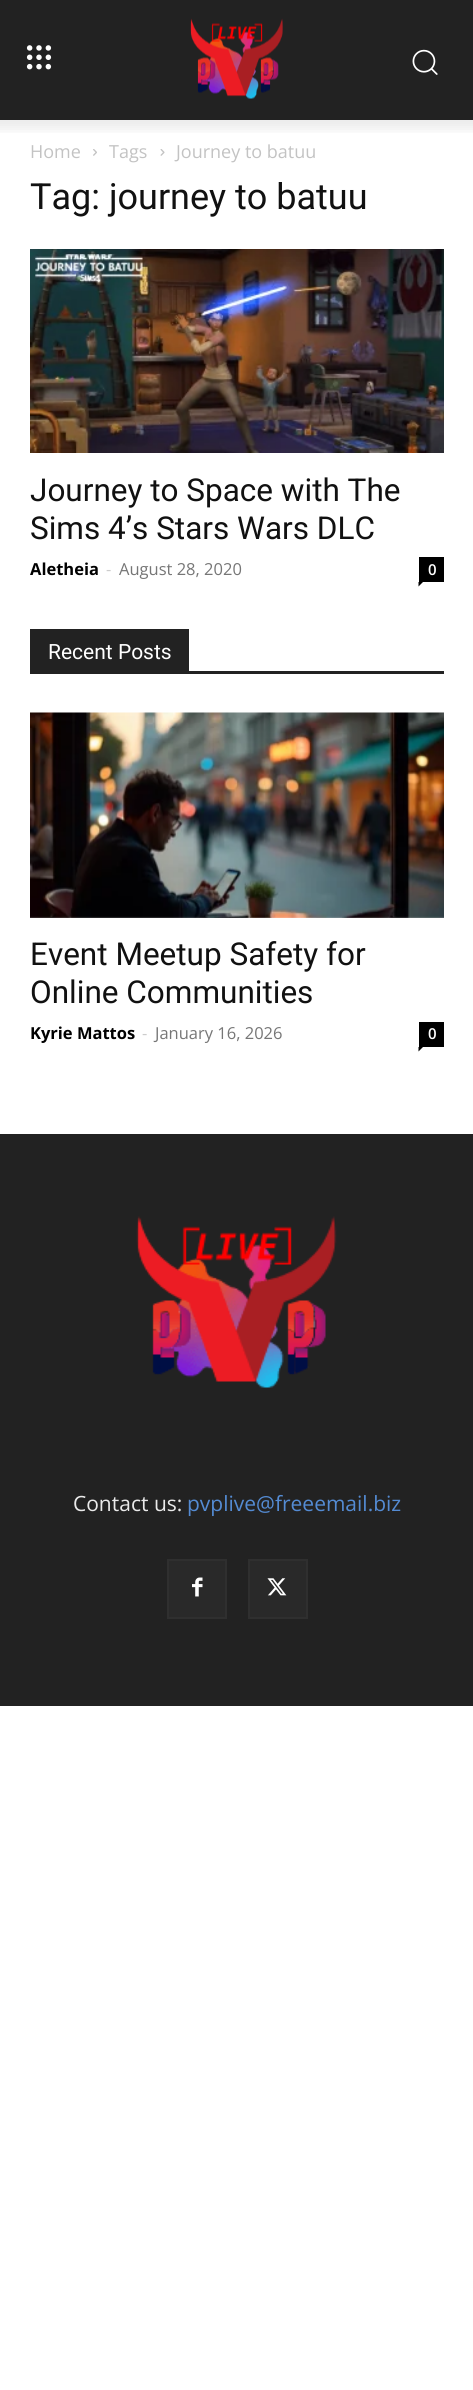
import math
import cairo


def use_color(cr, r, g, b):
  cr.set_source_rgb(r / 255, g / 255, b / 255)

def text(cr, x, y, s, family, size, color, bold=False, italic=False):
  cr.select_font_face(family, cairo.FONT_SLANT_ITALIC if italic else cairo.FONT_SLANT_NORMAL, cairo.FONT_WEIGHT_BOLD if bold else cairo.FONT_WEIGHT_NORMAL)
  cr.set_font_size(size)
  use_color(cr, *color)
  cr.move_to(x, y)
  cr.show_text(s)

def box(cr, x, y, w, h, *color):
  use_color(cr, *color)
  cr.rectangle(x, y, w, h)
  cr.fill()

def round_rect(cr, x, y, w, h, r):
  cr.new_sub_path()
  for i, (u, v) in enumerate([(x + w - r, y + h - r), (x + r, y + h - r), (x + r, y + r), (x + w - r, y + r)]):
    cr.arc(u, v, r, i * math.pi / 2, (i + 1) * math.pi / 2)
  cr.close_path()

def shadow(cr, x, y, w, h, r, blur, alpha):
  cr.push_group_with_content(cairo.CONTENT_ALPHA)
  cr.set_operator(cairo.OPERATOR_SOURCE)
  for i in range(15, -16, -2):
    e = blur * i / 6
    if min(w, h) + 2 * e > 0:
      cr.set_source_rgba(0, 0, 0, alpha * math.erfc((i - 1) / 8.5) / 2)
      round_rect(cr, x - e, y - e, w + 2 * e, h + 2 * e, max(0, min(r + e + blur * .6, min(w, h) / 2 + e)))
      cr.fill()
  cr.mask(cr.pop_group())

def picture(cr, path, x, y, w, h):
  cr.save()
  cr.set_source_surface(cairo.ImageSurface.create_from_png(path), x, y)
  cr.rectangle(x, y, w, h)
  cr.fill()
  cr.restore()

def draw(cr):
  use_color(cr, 255, 255, 255)
  cr.paint()
  box(cr, 0, 0, 473, 120, 34, 34, 34)
  picture(cr, "img_01.png", 26, 45, 26, 25)
  picture(cr, "img_02.png", 190, 18, 93, 81)
  picture(cr, "img_03.png", 412, 49, 26, 26)
  cr.save()
  cr.rectangle(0, 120, 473, 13)
  cr.clip()
  use_color(cr, 0, 0, 0)
  shadow(cr, -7, 9, 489, 120, 0, 6, 0.08)
  cr.restore()
  picture(cr, "img_04.png", 93, 149, 4, 7)
  picture(cr, "img_05.png", 160, 149, 5, 7)
  picture(cr, "img_06.png", 30, 249, 414, 204)
  box(cr, 419, 557, 25, 25, 0, 0, 0)
  cr.new_path()
  cr.move_to(418.5, 582)
  cr.line_to(423, 582)
  cr.line_to(418.5, 586.5)
  cr.close_path()
  cr.fill()
  box(cr, 30, 671, 414, 3, 34, 34, 34)
  box(cr, 30, 629, 159, 42, 34, 34, 34)
  picture(cr, "img_07.png", 30, 712, 414, 206)
  box(cr, 419, 1022, 25, 25, 0, 0, 0)
  cr.new_path()
  cr.move_to(418.5, 1047)
  cr.line_to(423, 1047)
  cr.line_to(418.5, 1051.5)
  cr.close_path()
  cr.fill()
  box(cr, 0, 1134, 473, 572, 34, 34, 34)
  picture(cr, "img_08.png", 136, 1216, 201, 173)
  box(cr, 169, 1561, 56, 56, 41, 41, 41)
  picture(cr, "img_09.png", 192, 1577, 11, 20)
  cr.rectangle(168, 1560, 58, 58)
  use_color(cr, 47, 47, 47)
  cr.stroke()
  box(cr, 250, 1561, 56, 56, 41, 41, 41)
  picture(cr, "img_10.png", 267, 1578, 20, 18)
  cr.rectangle(249, 1560, 58, 58)
  use_color(cr, 47, 47, 47)
  cr.stroke()
  text(cr, 30, 158, "Home", "Open Sans", 18, (195, 195, 195))
  text(cr, 109, 158, "Tags", "Open Sans", 18, (195, 195, 195))
  text(cr, 176, 158, "Journey to batuu", "Open Sans", 18, (195, 195, 195))
  text(cr, 30, 209, "Tag: journey to batuu", "Roboto", 36, (17, 17, 17))
  text(cr, 30, 501, "Journey to Space with The", "Roboto", 31.5, (17, 17, 17))
  text(cr, 30, 539, "Sims 4’s Stars Wars DLC", "Roboto", 31.5, (17, 17, 17))
  text(cr, 30, 575, "Aletheia", "Open Sans", 16.5, (0, 0, 0), bold=True)
  text(cr, 106, 575, "-", "Open Sans", 16.5, (204, 204, 204))
  text(cr, 119, 575, "August 28, 2020", "Open Sans", 16.5, (118, 118, 118))
  text(cr, 428, 575, "0", "Open Sans SemiBold", 15, (255, 255, 255))
  text(cr, 48, 659, "Recent Posts", "Roboto", 21, (255, 255, 255))
  text(cr, 30, 965, "Event Meetup Safety for", "Roboto", 31.5, (17, 17, 17))
  text(cr, 30, 1003, "Online Communities", "Roboto", 31.5, (17, 17, 17))
  text(cr, 30, 1039, "Kyrie Mattos", "Open Sans", 16.5, (0, 0, 0), bold=True)
  text(cr, 142, 1039, "-", "Open Sans", 16.5, (204, 204, 204))
  text(cr, 155, 1039, "January 16, 2026", "Open Sans", 16.5, (118, 118, 118))
  text(cr, 428, 1039, "0", "Open Sans SemiBold", 15, (255, 255, 255))
  text(cr, 73, 1511, "Contact us:", "Open Sans", 21, (234, 234, 234))
  text(cr, 187, 1511, "pvplive@freeemail.biz", "Open Sans", 21, (84, 139, 211))


surface = cairo.ImageSurface(cairo.FORMAT_RGB24, 473, 2390)
cr = cairo.Context(surface)
options = cairo.FontOptions()
options.set_hint_metrics(cairo.HINT_METRICS_OFF)
options.set_hint_style(cairo.HINT_STYLE_NONE)
cr.set_font_options(options)
cr.set_miter_limit(4)
draw(cr)
surface.write_to_png("out.png")
